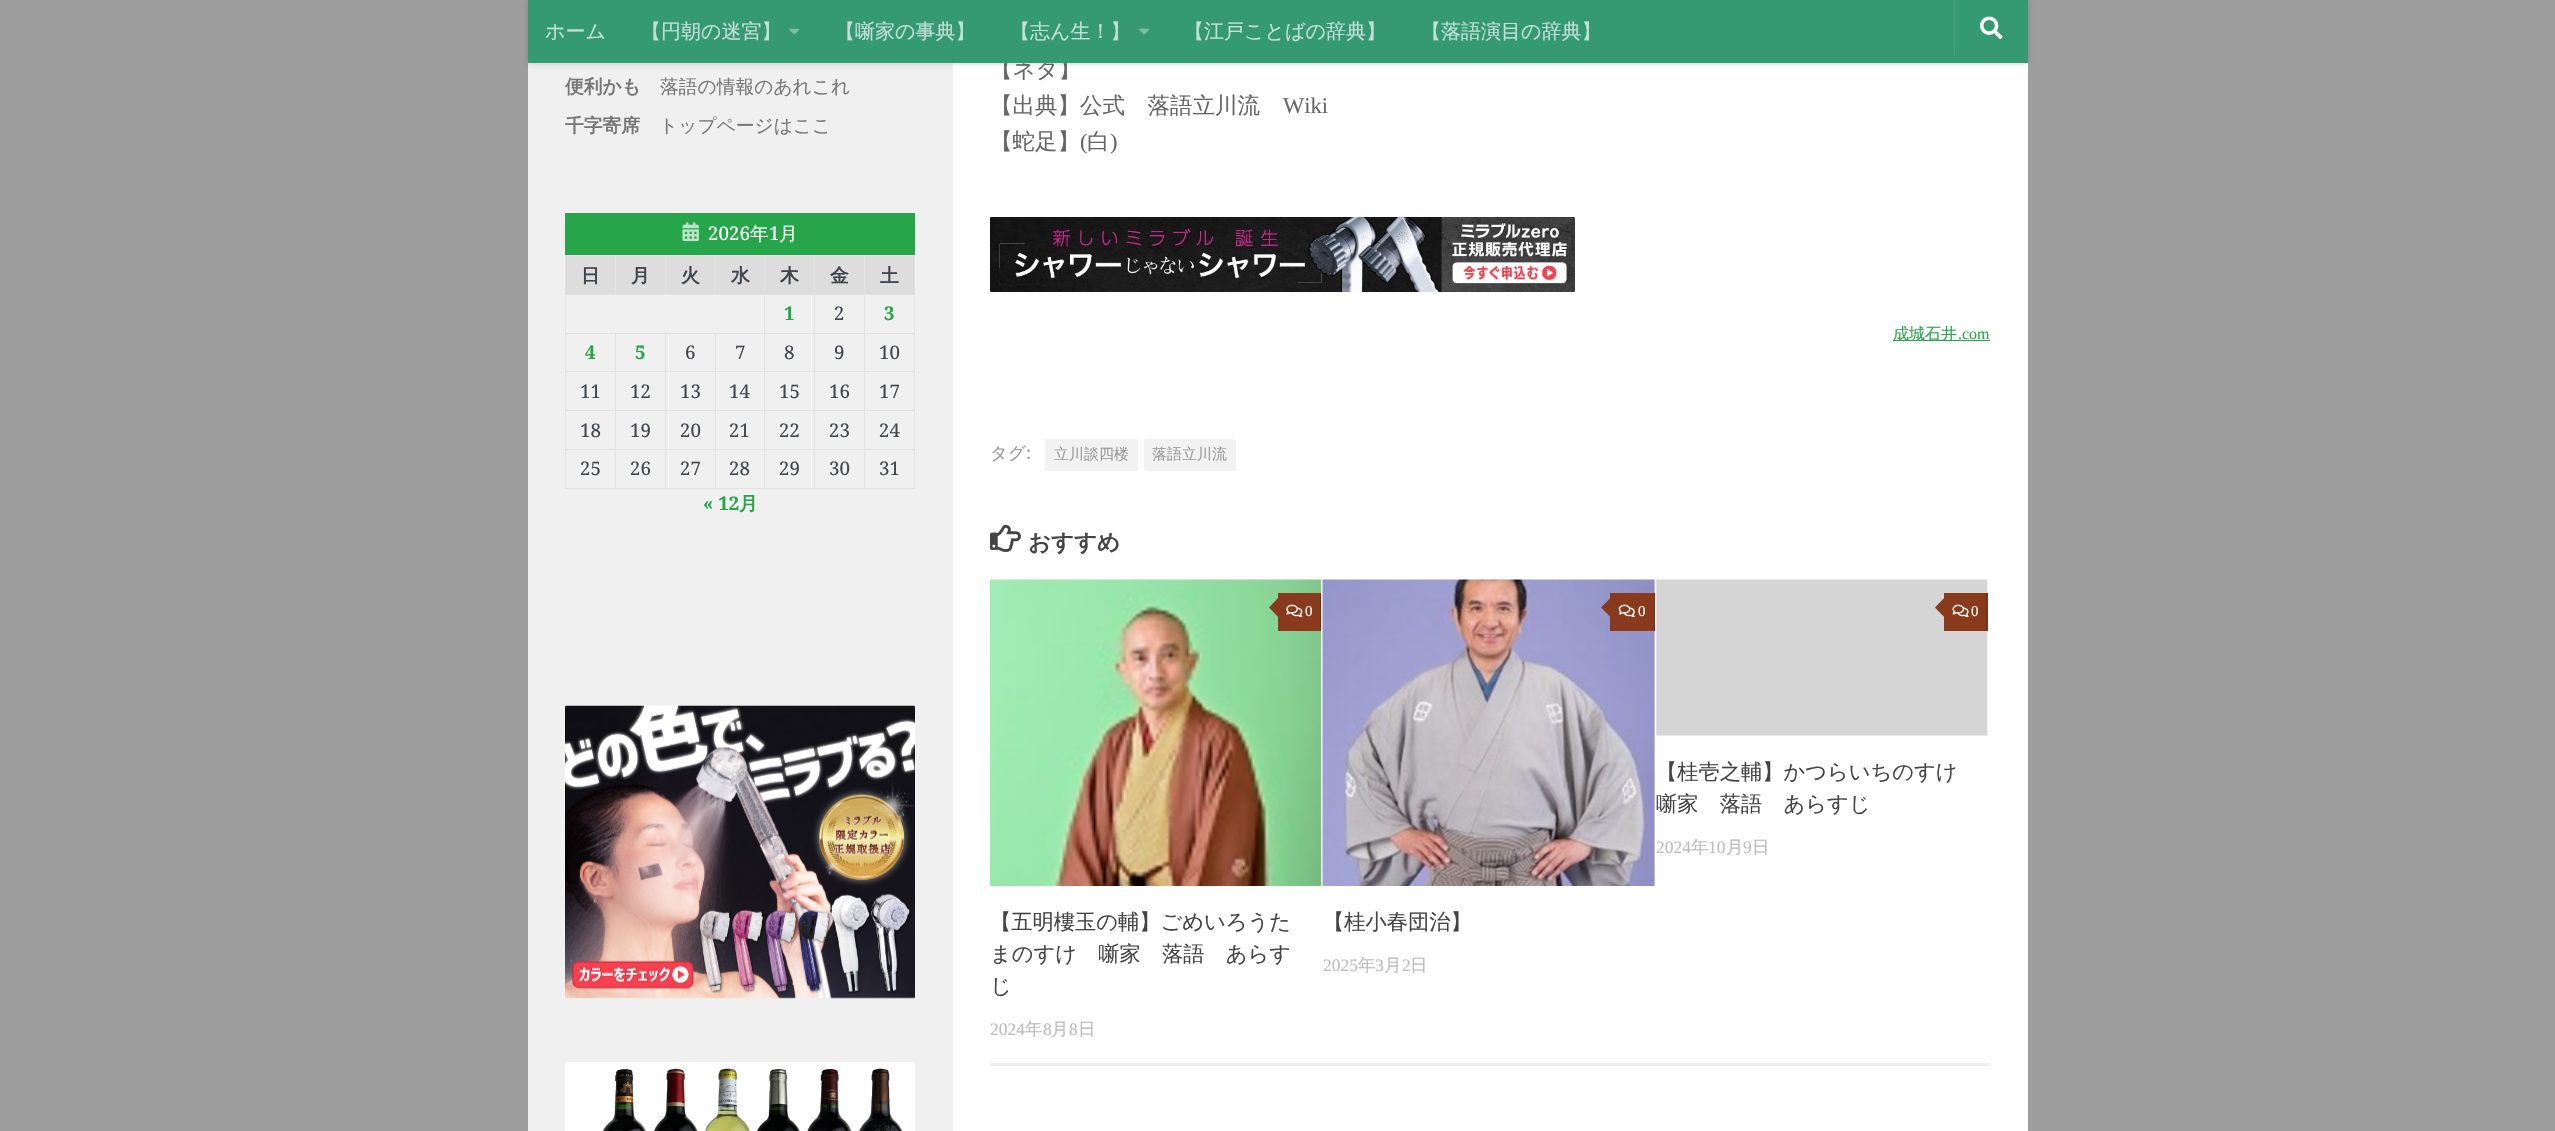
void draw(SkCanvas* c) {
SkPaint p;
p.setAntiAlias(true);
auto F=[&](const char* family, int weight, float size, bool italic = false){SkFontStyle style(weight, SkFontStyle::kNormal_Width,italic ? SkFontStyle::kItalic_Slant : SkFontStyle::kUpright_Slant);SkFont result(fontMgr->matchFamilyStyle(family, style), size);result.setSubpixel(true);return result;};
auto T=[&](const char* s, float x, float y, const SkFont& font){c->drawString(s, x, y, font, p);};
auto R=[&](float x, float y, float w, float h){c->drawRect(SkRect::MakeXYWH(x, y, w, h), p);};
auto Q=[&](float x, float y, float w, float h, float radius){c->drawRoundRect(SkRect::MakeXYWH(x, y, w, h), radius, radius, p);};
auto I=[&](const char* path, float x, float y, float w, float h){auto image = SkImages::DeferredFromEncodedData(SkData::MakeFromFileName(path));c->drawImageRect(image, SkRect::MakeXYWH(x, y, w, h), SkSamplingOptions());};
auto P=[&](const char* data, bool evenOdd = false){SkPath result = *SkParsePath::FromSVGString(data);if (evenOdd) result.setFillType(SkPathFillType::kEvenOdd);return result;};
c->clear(0xff9e9e9e);
p.setColor(0xffffffff);
R(953,63,1075,1068);
auto f1 = F("WenQuanYi Zen Hei",500,22.5);
p.setColor(0xff666666);
T("【ネタ】",990,77,f1);
p.setColor(0xfff0f0f0);
R(528,63,425,1068);
p.setColor(0x26ffffff);
c->drawPath(P("M528 62v2h1500v-63v61z"),p);
p.setColor(0x33000000);
p.setMaskFilter(SkMaskFilter::MakeBlur(kNormal_SkBlurStyle, 3));
c->drawRect(SkRect::MakeXYWH(528,0,1500,63),p);
p.setMaskFilter(nullptr);
p.setColor(0xff359972);
R(528,0,1500,63);
auto f2 = F("WenQuanYi Zen Hei",500,20);
p.setColor(0xffc2e0d5);
T("ホーム",545,38,f2);
T("【円朝の迷宮】",641,38,f2);
I("1.png",789,28,11,7);
T("【噺家の事典】",835,38,f2);
T("【志ん生！】",1010,38,f2);
I("1.png",1139,28,11,7);
T("【江戸ことばの辞典】",1184,38,f2);
T("【落語演目の辞典】",1421,38,f2);
p.setColor(0xff49a380);
R(1954,0,1,55);
I("2.png",1980,16,23,23);
auto f3 = F("WenQuanYi Zen Hei",700,18.75);
p.setColor(0xff777777);
T("便利かも",565,93,f3);
auto f4 = F("WenQuanYi Zen Hei",500,18.75);
T("落語の情報のあれこれ",660,93,f4);
T("千字寄席",565,132,f3);
T("トップページはここ",659,132,f4);
p.setColor(0xff26a54a);
R(565,213,350,42);
I("3.png",682,222,17,20);
auto f5 = F("Droid Serif",400,18.75);
p.setColor(0xffffffff);
T("2026",708,240,f5);
T("年",750,240,f4);
T("1",769,240,f5);
T("月",779,240,f4);
p.setColor(0xffdddddd);
R(566,256,49,38);
p.setColor(0xffe2e2e2);
R(864,255,51,1);
R(864,294,51,1);
R(864,333,51,1);
R(864,371,51,1);
R(864,410,51,1);
R(864,449,51,1);
R(914,449,1,40);
R(864,488,51,1);
R(864,449,1,40);
R(814,449,51,1);
R(864,410,1,40);
R(814,410,51,1);
R(864,371,1,40);
R(814,371,51,1);
R(864,333,1,40);
R(814,333,51,1);
R(864,294,1,40);
R(814,294,51,1);
R(864,255,1,40);
R(814,255,51,1);
R(814,488,51,1);
R(814,449,1,40);
R(764,449,51,1);
R(814,410,1,40);
R(764,410,51,1);
R(814,371,1,40);
R(764,371,51,1);
R(814,333,1,40);
R(764,333,51,1);
R(814,294,1,40);
R(764,294,51,1);
R(814,255,1,40);
R(764,255,51,1);
R(764,488,51,1);
R(764,449,1,40);
R(715,449,50,1);
R(764,410,1,40);
R(715,410,50,1);
R(764,371,1,40);
R(715,371,50,1);
R(764,333,1,40);
R(715,333,50,1);
R(764,294,1,40);
R(565,294,200,1);
R(764,255,1,40);
R(715,255,50,1);
R(715,255,1,40);
R(665,255,51,1);
R(665,255,1,40);
R(615,255,51,1);
R(615,255,1,40);
R(565,255,51,1);
R(715,488,50,1);
R(715,449,1,40);
R(665,449,51,1);
R(715,410,1,40);
R(665,410,51,1);
R(715,371,1,40);
R(665,371,51,1);
R(715,333,1,40);
R(665,333,51,1);
R(665,488,51,1);
R(665,449,1,40);
R(615,449,51,1);
R(665,410,1,40);
R(615,410,51,1);
R(665,371,1,40);
R(615,371,51,1);
R(665,333,1,40);
R(615,333,51,1);
R(615,488,51,1);
R(615,449,1,40);
R(565,449,51,1);
R(615,410,1,40);
R(565,410,51,1);
R(615,371,1,40);
R(565,371,51,1);
R(615,333,1,40);
R(565,333,51,1);
R(565,488,51,1);
R(565,449,1,40);
R(565,410,1,40);
R(565,371,1,40);
R(565,333,1,40);
R(565,294,1,40);
R(565,255,1,40);
p.setColor(0xff40464d);
T("日",581,282,f3);
p.setColor(0xffdddddd);
R(616,256,49,38);
p.setColor(0xff40464d);
T("月",631,282,f3);
p.setColor(0xffdddddd);
R(666,256,49,38);
p.setColor(0xff40464d);
T("火",681,282,f3);
p.setColor(0xffdddddd);
R(716,256,48,38);
p.setColor(0xff40464d);
T("水",731,282,f3);
p.setColor(0xffdddddd);
R(765,256,49,38);
p.setColor(0xff40464d);
T("木",780,282,f3);
p.setColor(0xffdddddd);
R(815,256,49,38);
p.setColor(0xff40464d);
T("金",830,282,f3);
p.setColor(0xffdddddd);
R(865,256,49,38);
p.setColor(0xffe2e2e2);
R(914,410,1,40);
R(914,371,1,40);
R(914,333,1,40);
R(914,294,1,40);
R(914,255,1,40);
p.setColor(0xff40464d);
T("土",880,282,f3);
auto f6 = F("Droid Serif",700,18.75);
p.setColor(0xff26a54a);
T("1",784,320,f6);
p.setColor(0xff40464d);
T("2",834,320,f5);
p.setColor(0xff26a54a);
T("3",884,320,f6);
T("4",585,359,f6);
T("5",635,359,f6);
p.setColor(0xff40464d);
T("6",685,359,f5);
T("7",735,359,f5);
T("8",784,359,f5);
T("9",834,359,f5);
T("10",879,359,f5);
T("11",580,398,f5);
T("12",630,398,f5);
T("13",680,398,f5);
T("14",729,398,f5);
T("15",779,398,f5);
T("16",829,398,f5);
T("17",879,398,f5);
T("18",580,437,f5);
T("19",630,437,f5);
T("20",680,437,f5);
T("21",729,437,f5);
T("22",779,437,f5);
T("23",829,437,f5);
T("24",879,437,f5);
T("25",580,475,f5);
T("26",630,475,f5);
T("27",680,475,f5);
T("28",729,475,f5);
T("29",779,475,f5);
T("30",829,475,f5);
T("31",879,475,f5);
p.setColor(0xff26a54a);
T("« 12",703,510,f6);
T("月",739,510,f3);
I("4.png",565,705,350,294);
I("5.png",565,1062,350,69);
p.setColor(0xff666666);
T("【出典】公式　落語立川流",990,113,f1);
auto f7 = F("Liberation Serif",400,22.5);
T("Wiki",1283,113,f7);
T("【蛇足】",990,149,f1);
T("(",1080,149,f7);
T("白",1087,149,f1);
T(")",1110,149,f7);
I("6.png",990,217,585,75);
p.setColor(0xff26a54a);
R(1893,340,97,1);
auto f8 = F("WenQuanYi Zen Hei",500,16);
T("成城石井",1893,339,f8);
auto f9 = F("Liberation Serif",400,16);
T(".com",1958,339,f9);
auto f10 = F("WenQuanYi Zen Hei",500,17.5);
p.setColor(0xff999999);
T("タグ",990,459,f10);
auto f11 = F("Droid Serif",400,17.5);
T(":",1026,459,f11);
p.setColor(0xfff2f2f2);
Q(1045,439,93,32,2.5);
auto f12 = F("WenQuanYi Zen Hei",500,15);
p.setColor(0xff999999);
T("立川談四楼",1054,459,f12);
p.setColor(0xfff2f2f2);
Q(1144,439,92,32,2.5);
p.setColor(0xff999999);
T("落語立川流",1152,459,f12);
I("7.png",990,524,31,28);
auto f13 = F("WenQuanYi Zen Hei",700,22.5);
p.setColor(0xff444444);
T("おすすめ",1028,550,f13);
p.setColor(0xffeeeeee);
R(990,1063,1000,3);
I("8.png",990,579,332,307);
p.setColor(0xff89391c);
R(1278,593,42,38);
p.setColor(0xff6e2e16);
R(1320,593,1,38);
p.setColor(0xff89391c);
c->drawPath(P("M1280 596v23l-11-11.5z"),p);
I("9.png",1286,604,17,14);
auto f14 = F("Liberation Serif",400,15);
p.setColor(0xffffffff);
T("0",1305,616,f14);
auto f15 = F("WenQuanYi Zen Hei",500,21.25);
p.setColor(0xff444444);
T("【五明樓玉の輔】ごめいろうた",990,929,f15);
T("まのすけ　噺家　落語　あらす",990,961,f15);
T("じ",990,993,f15);
auto f16 = F("Liberation Serif",400,17.5);
p.setColor(0xffbbbbbb);
T("2024",990,1035,f16);
T("年",1025,1035,f10);
T("8",1043,1035,f16);
T("月",1051,1035,f10);
T("8",1069,1035,f16);
T("日",1078,1035,f10);
I("10.png",1322,579,333,307);
p.setColor(0xff89391c);
R(1610,593,44,38);
p.setColor(0xff6e2e16);
R(1654,593,1,38);
p.setColor(0xff89391c);
c->drawPath(P("M1612.5 596v23l-11.5-11.5z"),p);
I("11.png",1618,604,17,14);
p.setColor(0xffffffff);
T("0",1638,616,f14);
p.setColor(0xff444444);
T("【桂小春団治】",1323,929,f15);
p.setColor(0xffbbbbbb);
T("2025",1323,971,f16);
T("年",1358,971,f10);
T("3",1375,971,f16);
T("月",1384,971,f10);
T("2",1402,971,f16);
T("日",1410,971,f10);
I("12.png",1656,579,332,157);
p.setColor(0xff89391c);
R(1944,593,44,38);
p.setColor(0xff6e2e16);
R(1986,593,1,38);
p.setColor(0xff89391c);
c->drawPath(P("M1946 596v23l-11-11.5z"),p);
I("13.png",1952,604,17,14);
p.setColor(0xffffffff);
T("0",1971,616,f14);
p.setColor(0xff444444);
T("【桂壱之輔】かつらいちのすけ",1656,779,f15);
T("噺家　落語　あらすじ",1656,811,f15);
p.setColor(0xffbbbbbb);
T("2024",1656,853,f16);
T("年",1691,853,f10);
T("10",1708,853,f16);
T("月",1726,853,f10);
T("9",1743,853,f16);
T("日",1752,853,f10);
}
